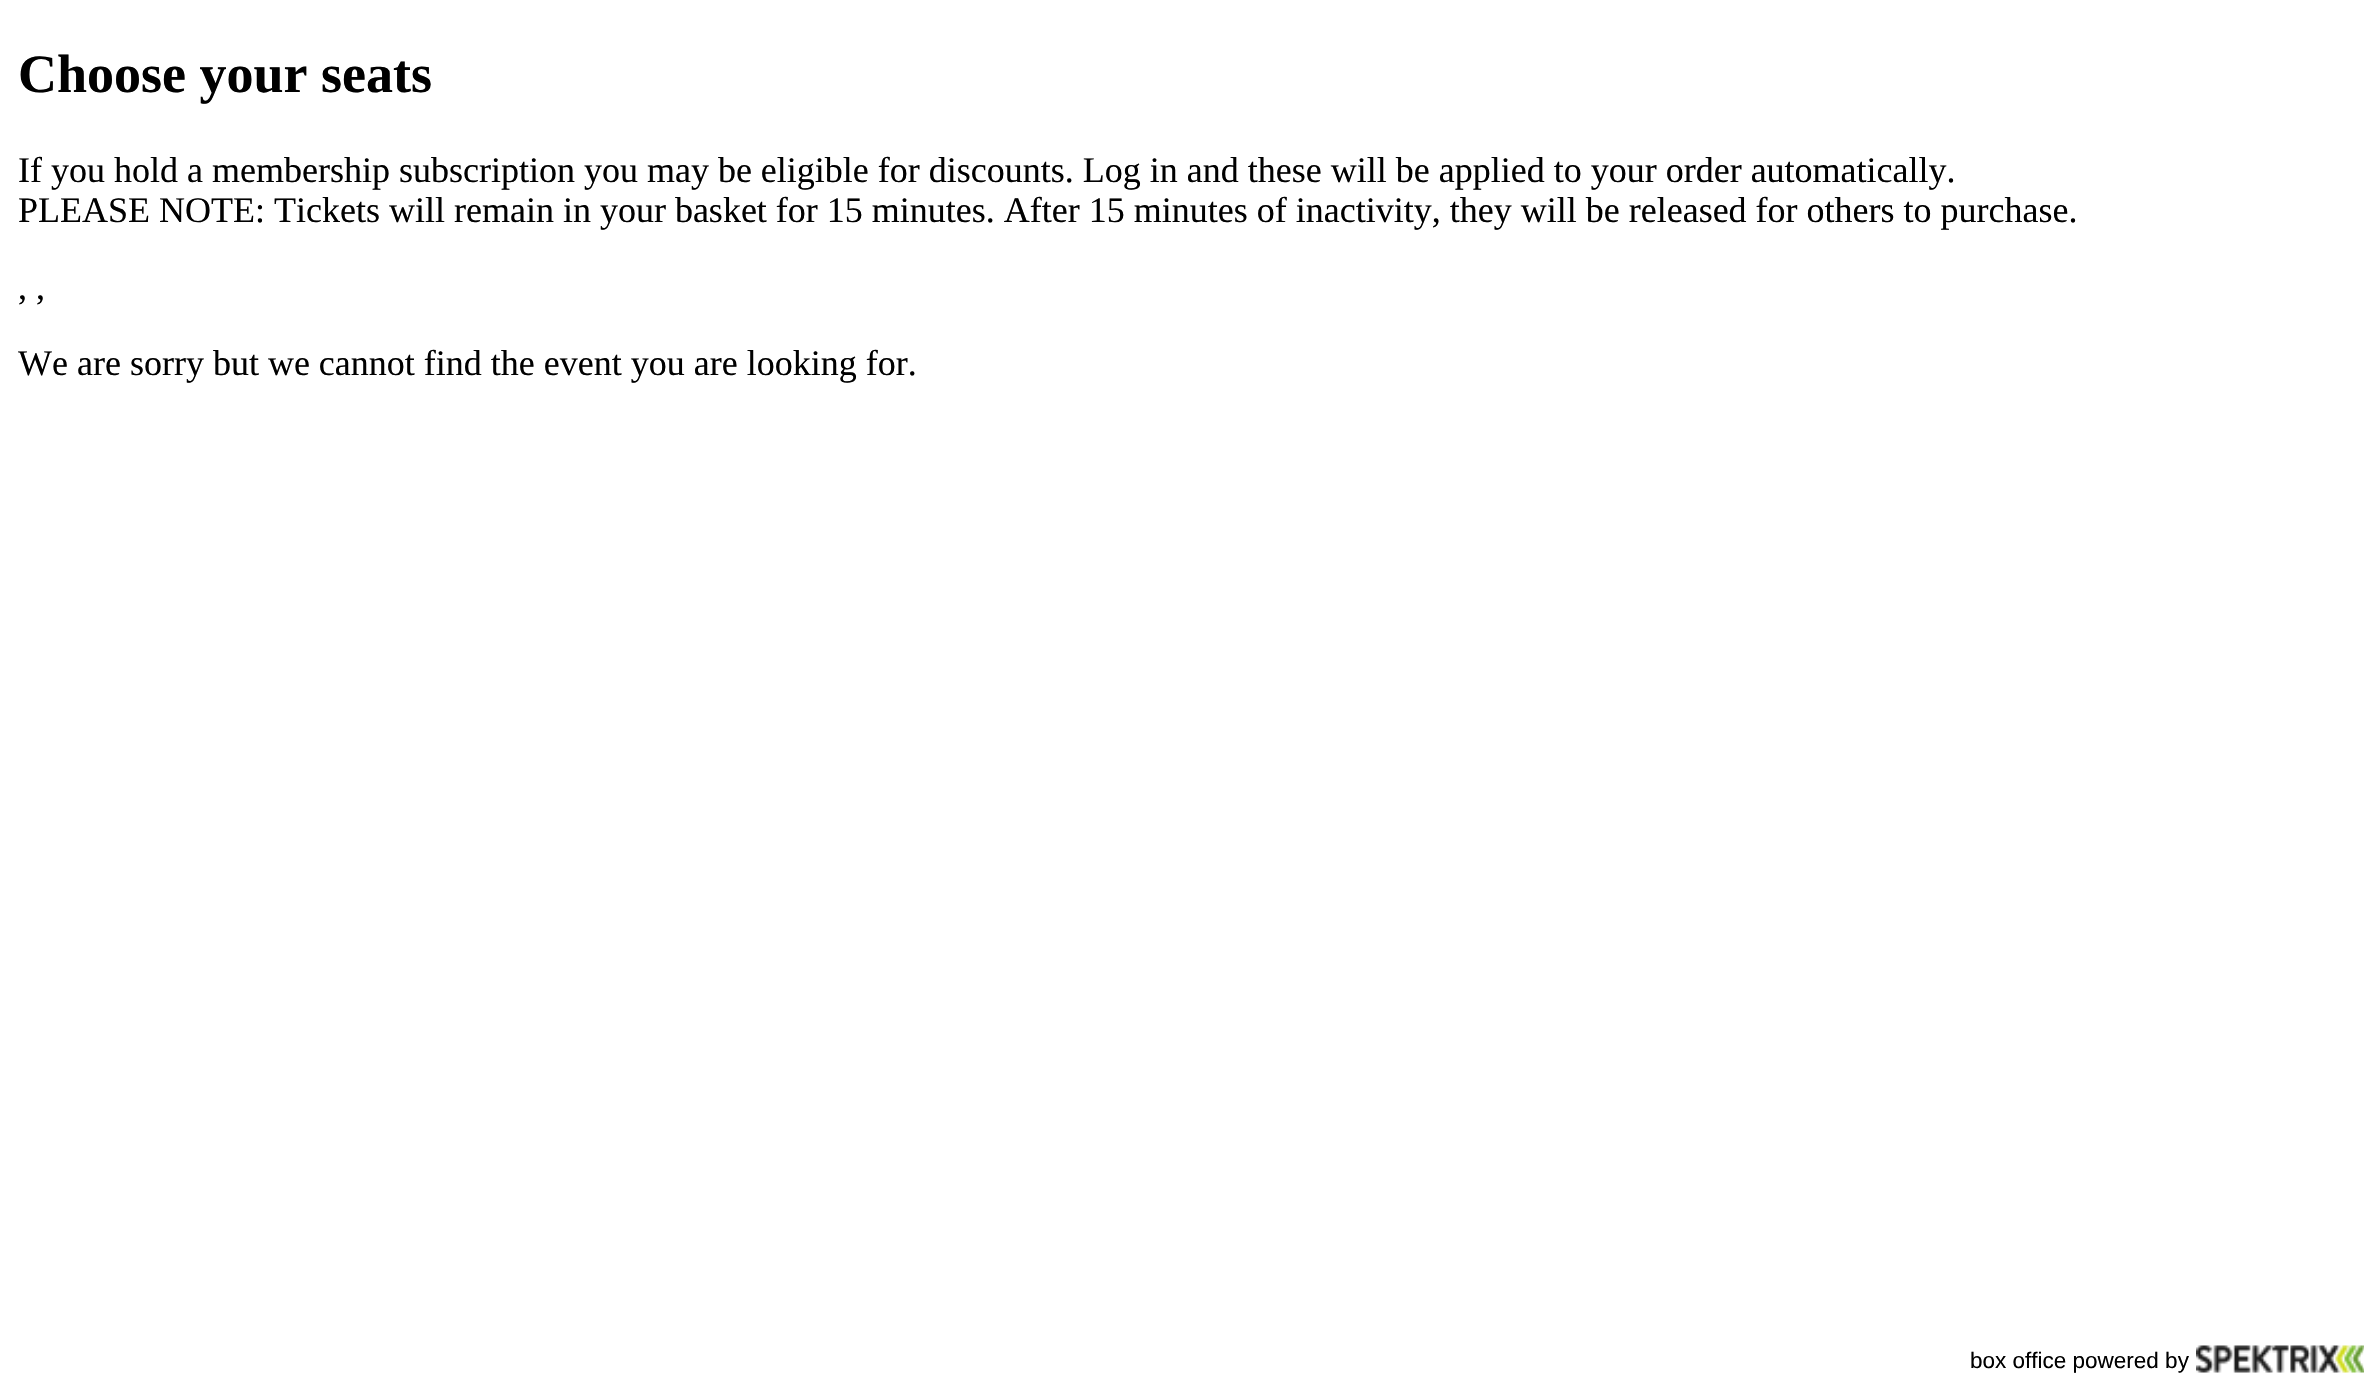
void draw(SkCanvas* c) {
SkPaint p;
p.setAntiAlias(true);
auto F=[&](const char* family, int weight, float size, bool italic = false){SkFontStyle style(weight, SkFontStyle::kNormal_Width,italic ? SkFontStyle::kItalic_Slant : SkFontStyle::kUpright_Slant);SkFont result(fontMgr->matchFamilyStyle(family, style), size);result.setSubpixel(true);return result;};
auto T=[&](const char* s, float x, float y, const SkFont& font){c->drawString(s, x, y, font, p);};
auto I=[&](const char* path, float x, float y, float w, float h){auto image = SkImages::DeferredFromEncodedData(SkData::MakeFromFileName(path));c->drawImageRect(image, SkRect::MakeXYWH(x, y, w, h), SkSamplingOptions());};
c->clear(0xffffffff);
auto f1 = F("Liberation Serif",700,54);
p.setColor(0xff000000);
T("Choose your seats",18,92,f1);
auto f2 = F("Liberation Serif",400,36);
T("If you hold a membership subscription you may be eligible for discounts. Log in and these will be applied to your order automatically.",18,182,f2);
T("PLEASE NOTE: Tickets will remain in your basket for 15 minutes. After 15 minutes of inactivity, they will be released for others to purchase.",18,222,f2);
T(", ,",18,299,f2);
T("We are sorry but we cannot find the event you are looking for.",18,375,f2);
auto f3 = F("Liberation Sans",400,22.5);
T("box office powered by",1970,1368,f3);
I("1.png",2196,1345,168,28);
}
